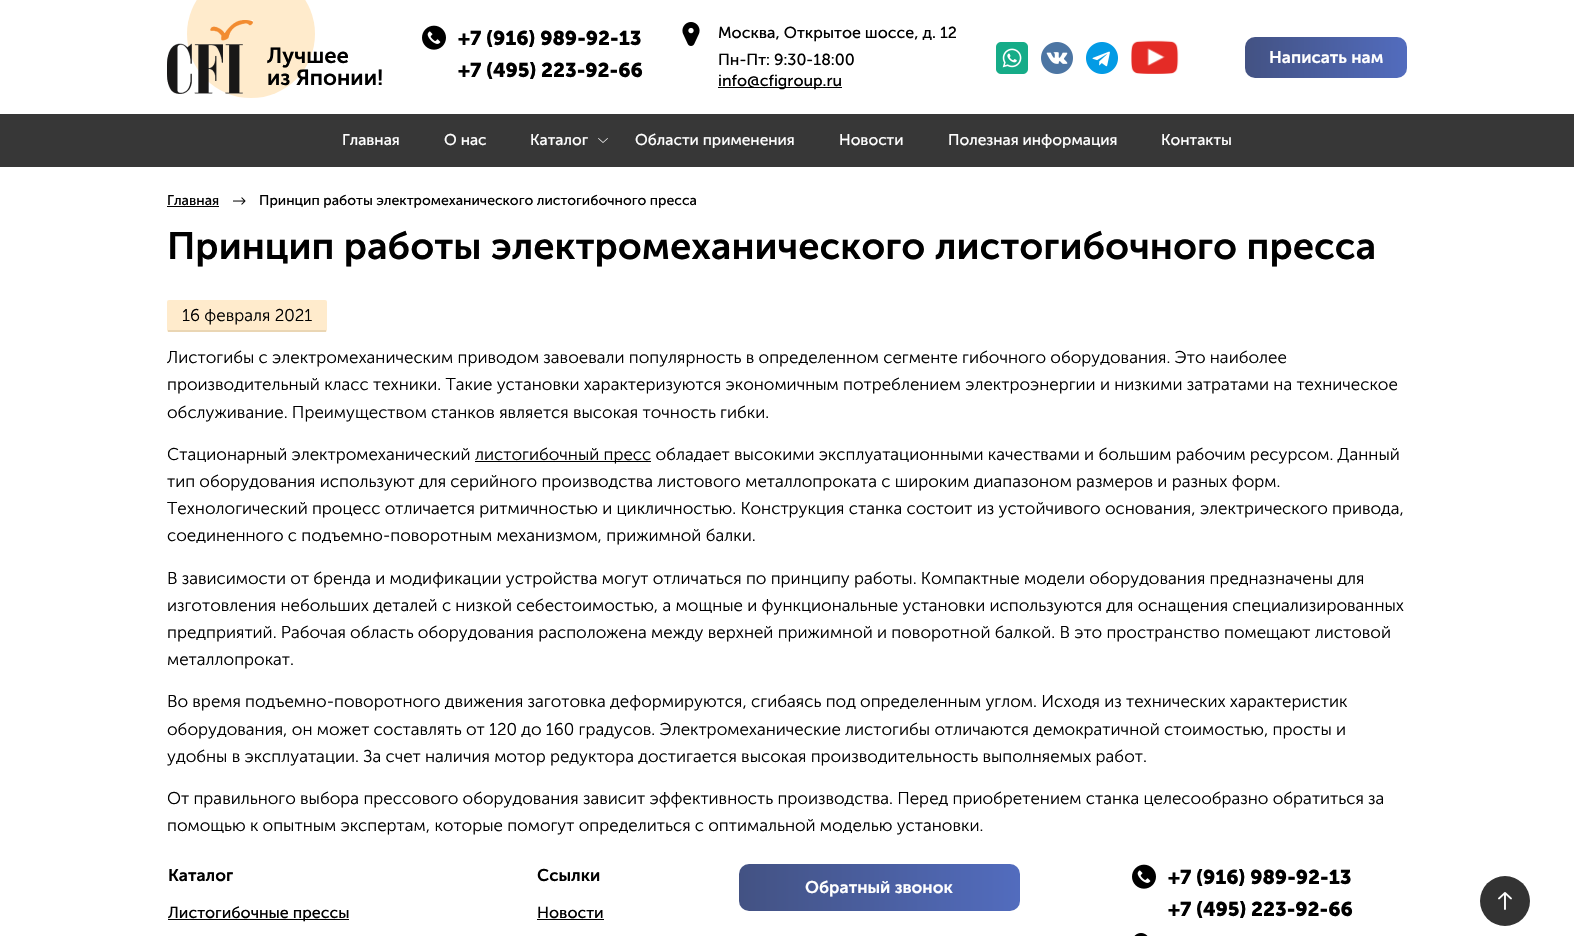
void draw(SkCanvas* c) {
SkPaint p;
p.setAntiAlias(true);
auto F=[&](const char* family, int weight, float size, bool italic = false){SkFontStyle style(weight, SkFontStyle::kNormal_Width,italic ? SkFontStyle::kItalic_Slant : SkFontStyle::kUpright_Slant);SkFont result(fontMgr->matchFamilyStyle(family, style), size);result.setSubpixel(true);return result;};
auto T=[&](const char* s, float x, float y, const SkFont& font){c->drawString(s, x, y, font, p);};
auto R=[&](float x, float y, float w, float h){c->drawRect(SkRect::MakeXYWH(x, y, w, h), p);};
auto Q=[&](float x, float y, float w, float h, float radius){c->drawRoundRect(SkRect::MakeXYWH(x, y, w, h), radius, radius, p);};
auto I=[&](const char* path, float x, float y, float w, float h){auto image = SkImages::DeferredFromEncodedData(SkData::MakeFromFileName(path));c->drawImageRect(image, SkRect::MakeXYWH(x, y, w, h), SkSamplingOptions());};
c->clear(0xffffffff);
p.setColor(0xffffebcc);
c->drawCircle(251,34,64,p);
I("1.png",167,20,86,74);
auto f1 = F("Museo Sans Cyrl",600,22);
p.setColor(0xff000000);
T("Лучшее",267,63,f1);
T("из Японии!",267,85,f1);
I("2.png",422,25,24,25);
auto f2 = F("Museo Sans Cyrl",700,20);
T("+7 (916) 989-92-13",458,45,f2);
T("+7 (495) 223-92-66",458,77,f2);
I("3.png",682,22,18,24);
auto f3 = F("Museo Sans Cyrl",400,16);
T("Москва, Открытое шоссе, д. 12",718,38,f3);
T("Пн-Пт: 9:30-18:00",718,65,f3);
R(718,87,124,1);
T("info@cfigroup.ru",718,86,f3);
I("4.png",996,42,32,32);
I("5.png",1041,42,32,32);
I("6.png",1086,42,32,32);
I("7.png",1131,40,48,34);
{
const SkColor colors[] = {0xff435283,0xff526cbe};
const float stops[] = {0,1};
const SkPoint ends[] = {{1245,58}, {1407,57}};
p.setShader(SkGradientShader::MakeLinear(ends, colors, stops, 2, SkTileMode::kClamp));
p.setAlpha(255);
}
Q(1245,37,162,41,10);
auto f4 = F("Museo Sans Cyrl",600,17);
p.setShader(nullptr);
p.setColor(0xffffffff);
T("Написать нам",1269,63,f4);
p.setColor(0xff373737);
R(0,114,1574,53);
auto f5 = F("Museo Sans Cyrl",400,15.5);
p.setColor(0xffffffff);
T("Главная",342,145,f5);
T("О нас",444,145,f5);
I("8.png",598,138,10,5);
T("Каталог",530,145,f5);
T("Области применения",635,145,f5);
T("Новости",839,145,f5);
T("Полезная информация",948,145,f5);
T("Контакты",1161,145,f5);
auto f6 = F("Museo Sans Cyrl",400,14);
p.setColor(0xff000000);
T("Главная",167,205,f6);
R(167,206,52,1);
I("9.png",233,197,13,8);
T("Принцип работы электромеханического листогибочного пресса",259,205,f6);
auto f7 = F("Museo Sans Cyrl",600,38);
T("Принцип работы электромеханического листогибочного пресса",167,259,f7);
p.setColor(0xffffebcc);
Q(167,300,160,32,2);
auto f8 = F("Museo Sans Cyrl",300,17);
p.setColor(0xff000000);
T("16 февраля 2021",182,321,f8);
p.setColor(0xffead6b4);
R(168,330,158,2);
p.setColor(0xff000000);
T("Листогибы с электромеханическим приводом завоевали популярность в определенном сегменте гибочного оборудования. Это наиболее",167,363,f8);
T("производительный класс техники. Такие установки характеризуются экономичным потреблением электроэнергии и низкими затратами на техническое",167,390,f8);
T("обслуживание. Преимуществом станков является высокая точность гибки.",167,418,f8);
T("Стационарный электромеханический",167,460,f8);
R(475,461,176,1);
T("листогибочный пресс обладает высокими эксплуатационными качествами и большим рабочим ресурсом. Данный",475,460,f8);
T("тип оборудования используют для серийного производства листового металлопроката с широким диапазоном размеров и разных форм.",167,487,f8);
T("Технологический процесс отличается ритмичностью и цикличностью. Конструкция станка состоит из устойчивого основания, электрического привода,",167,514,f8);
T("соединенного с подъемно-поворотным механизмом, прижимной балки.",167,541,f8);
T("В зависимости от бренда и модификации устройства могут отличаться по принципу работы. Компактные модели оборудования предназначены для",167,584,f8);
T("изготовления небольших деталей с низкой себестоимостью, а мощные и функциональные установки используются для оснащения специализированных",167,611,f8);
T("предприятий. Рабочая область оборудования расположена между верхней прижимной и поворотной балкой. В это пространство помещают листовой",167,638,f8);
T("металлопрокат.",167,665,f8);
T("Во время подъемно-поворотного движения заготовка деформируются, сгибаясь под определенным углом. Исходя из технических характеристик",167,707,f8);
T("оборудования, он может составлять от 120 до 160 градусов. Электромеханические листогибы отличаются демократичной стоимостью, просты и",167,735,f8);
T("удобны в эксплуатации. За счет наличия мотор редуктора достигается высокая производительность выполняемых работ.",167,762,f8);
T("От правильного выбора прессового оборудования зависит эффективность производства. Перед приобретением станка целесообразно обратиться за",167,804,f8);
T("помощью к опытным экспертам, которые помогут определиться с оптимальной моделью установки.",167,831,f8);
T("Каталог",168,881,f4);
R(168,919,181,1);
T("Листогибочные прессы",168,918,f3);
T("Ссылки",537,881,f4);
T("Новости",537,918,f3);
R(537,919,67,1);
{
const SkColor colors[] = {0xff435283,0xff526cbe};
const float stops[] = {0,1};
const SkPoint ends[] = {{739,888}, {1020,888}};
p.setShader(SkGradientShader::MakeLinear(ends, colors, stops, 2, SkTileMode::kClamp));
p.setAlpha(255);
}
Q(739,864,281,47,10);
p.setShader(nullptr);
p.setColor(0xffffffff);
T("Обратный звонок",805,893,f4);
I("2.png",1132,864,24,25);
p.setColor(0xff000000);
T("+7 (916) 989-92-13",1168,884,f2);
T("+7 (495) 223-92-66",1168,916,f2);
I("10.png",1134,933,14,3);
p.setColor(0xff333333);
c->drawCircle(1505,901,25,p);
I("11.png",1498,892,14,18);
}
